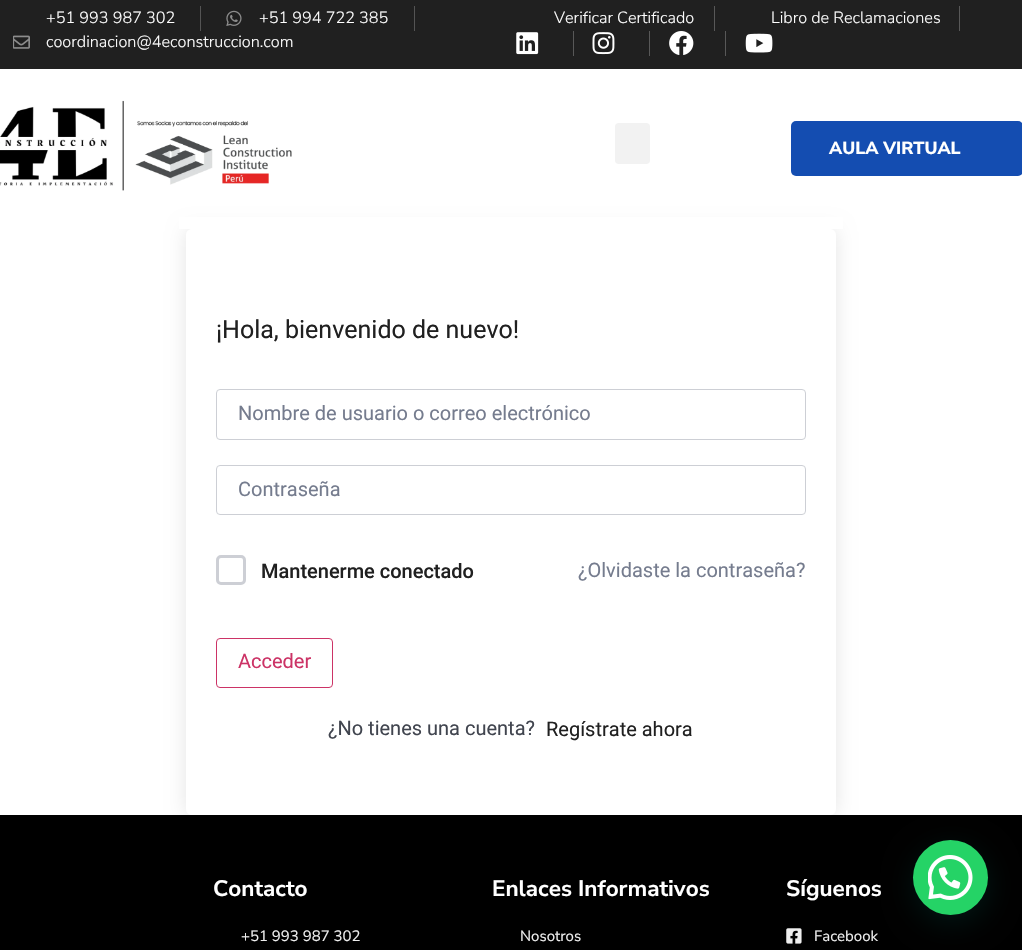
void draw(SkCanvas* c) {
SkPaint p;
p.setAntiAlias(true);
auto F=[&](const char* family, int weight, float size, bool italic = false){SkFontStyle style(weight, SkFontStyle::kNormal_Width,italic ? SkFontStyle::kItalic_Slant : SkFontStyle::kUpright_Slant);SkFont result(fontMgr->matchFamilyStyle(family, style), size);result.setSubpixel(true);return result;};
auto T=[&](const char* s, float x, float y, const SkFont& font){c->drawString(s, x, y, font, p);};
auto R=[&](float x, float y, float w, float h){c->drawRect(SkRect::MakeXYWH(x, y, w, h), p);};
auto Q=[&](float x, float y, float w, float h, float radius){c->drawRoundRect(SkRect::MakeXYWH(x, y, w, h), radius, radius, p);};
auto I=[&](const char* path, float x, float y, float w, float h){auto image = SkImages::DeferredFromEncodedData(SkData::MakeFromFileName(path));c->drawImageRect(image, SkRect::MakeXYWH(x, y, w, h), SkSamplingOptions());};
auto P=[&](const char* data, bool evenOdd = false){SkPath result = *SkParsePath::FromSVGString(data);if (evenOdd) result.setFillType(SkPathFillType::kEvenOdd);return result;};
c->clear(0xffffffff);
p.setColor(0xff202020);
R(0,0,1022,69);
auto f1 = F("Nunito Sans",300,16.25);
p.setColor(0xffffffff);
T("+51 993 987 302",46,23,f1);
p.setColor(0xff545454);
R(200,6,1,25);
I("1.png",226,10,16,16);
p.setColor(0xffffffff);
T("+51 994 722 385",259,23,f1);
p.setColor(0xff545454);
R(414,6,1,25);
I("2.png",13,35,17,14);
p.setColor(0xffffffff);
T("coordinacion@4econstruccion.com",46,47,f1);
T("Verificar Certificado",554,23,f1);
p.setColor(0xff585858);
R(714,6,1,25);
p.setColor(0xffffffff);
T("Libro de Reclamaciones",771,23,f1);
p.setColor(0xff585858);
R(959,6,1,25);
I("3.png",516,32,23,23);
R(573,31,1,25);
I("4.png",592,32,23,23);
R(649,31,1,25);
I("5.png",669,31,25,24);
R(725,31,1,25);
I("6.png",745,33,28,20);
c->save();
c->clipPath(P("M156 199h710v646h-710zm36 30h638c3.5 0 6 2.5 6 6v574c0 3.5-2.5 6-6 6h-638c-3.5 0-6-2.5-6-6v-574c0-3.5 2.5-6 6-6z",true),true);
p.setColor(0x1a000000);
p.setMaskFilter(SkMaskFilter::MakeBlur(kNormal_SkBlurStyle, 9.5));
c->drawRoundRect(SkRect::MakeXYWH(186,229,650,586),6,6,p);
p.setMaskFilter(nullptr);
c->restore();
p.setColor(0xffffffff);
R(179,217,664,12);
I("7.png",0,100,292,91);
p.setColor(0xfff2f2f2);
Q(615,123,35,41,4);
p.setColor(0xff144db1);
Q(791,121,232,55,5);
auto f2 = F("Nunito Sans",800,17.5);
p.setColor(0xffffffff);
T("AULA VIRTUAL",829,154,f2);
auto f3 = F("Roboto",400,25);
p.setColor(0xff202020);
T("¡Hola, bienvenido de nuevo!",216,338,f3);
p.setStroke(true);
p.setStrokeWidth(1);
p.setColor(0xffcdcfd5);
c->drawRoundRect(SkRect::MakeXYWH(216.5,389.5,589,50),3.5,3.5,p);
auto f4 = F("Roboto",400,20);
p.setStroke(false);
p.setColor(0xff757c8e);
T("Nombre de usuario o correo electrónico",238,420,f4);
p.setStroke(true);
p.setColor(0xffcdcfd5);
c->drawRoundRect(SkRect::MakeXYWH(216.5,465.5,589,49),3.5,3.5,p);
p.setStroke(false);
p.setColor(0xff757c8e);
T("Contraseña",238,496,f4);
p.setStroke(true);
p.setStrokeWidth(3);
p.setColor(0xffcdcfd5);
c->drawRoundRect(SkRect::MakeXYWH(217.5,556.5,27,27),3.5,3.5,p);
auto f5 = F("Roboto",500,20);
p.setStroke(false);
p.setColor(0xff202020);
T("Mantenerme conectado",261,578,f5);
p.setColor(0xff757c8e);
T("¿Olvidaste la contraseña?",578,577,f4);
p.setStroke(true);
p.setStrokeWidth(1);
p.setColor(0xffcc3366);
c->drawRoundRect(SkRect::MakeXYWH(216.5,638.5,116,49),3.5,3.5,p);
p.setStroke(false);
T("Acceder",238,668,f4);
p.setColor(0xff41454f);
T("¿No tienes una cuenta?",328,735,f4);
p.setColor(0xff202020);
T("Regístrate ahora",546,736,f4);
p.setColor(0xff000000);
R(0,815,1022,135);
auto f6 = F("Nunito Sans",700,22.5);
p.setColor(0xffffffff);
T("Contacto",213,896,f6);
auto f7 = F("Nunito Sans",400,15);
p.setColor(0xffeeeeee);
T("+51 993 987 302",241,941,f7);
p.setColor(0xffffffff);
T("Enlaces Informativos",492,896,f6);
p.setColor(0xffeeeeee);
T("Nosotros",520,941,f7);
p.setColor(0xffffffff);
T("Síguenos",786,896,f6);
I("8.png",786,928,16,16);
p.setColor(0xffeeeeee);
T("Facebook",814,941,f7);
p.setColor(0x3d075e54);
p.setMaskFilter(SkMaskFilter::MakeBlur(kNormal_SkBlurStyle, 15));
c->drawRoundRect(SkRect::MakeXYWH(914,848,75,75),37.5,37.5,p);
p.setMaskFilter(nullptr);
p.setColor(0xff25d366);
c->drawCircle(950.5,877.5,37.5,p);
I("9.png",928,855,45,45);
}
